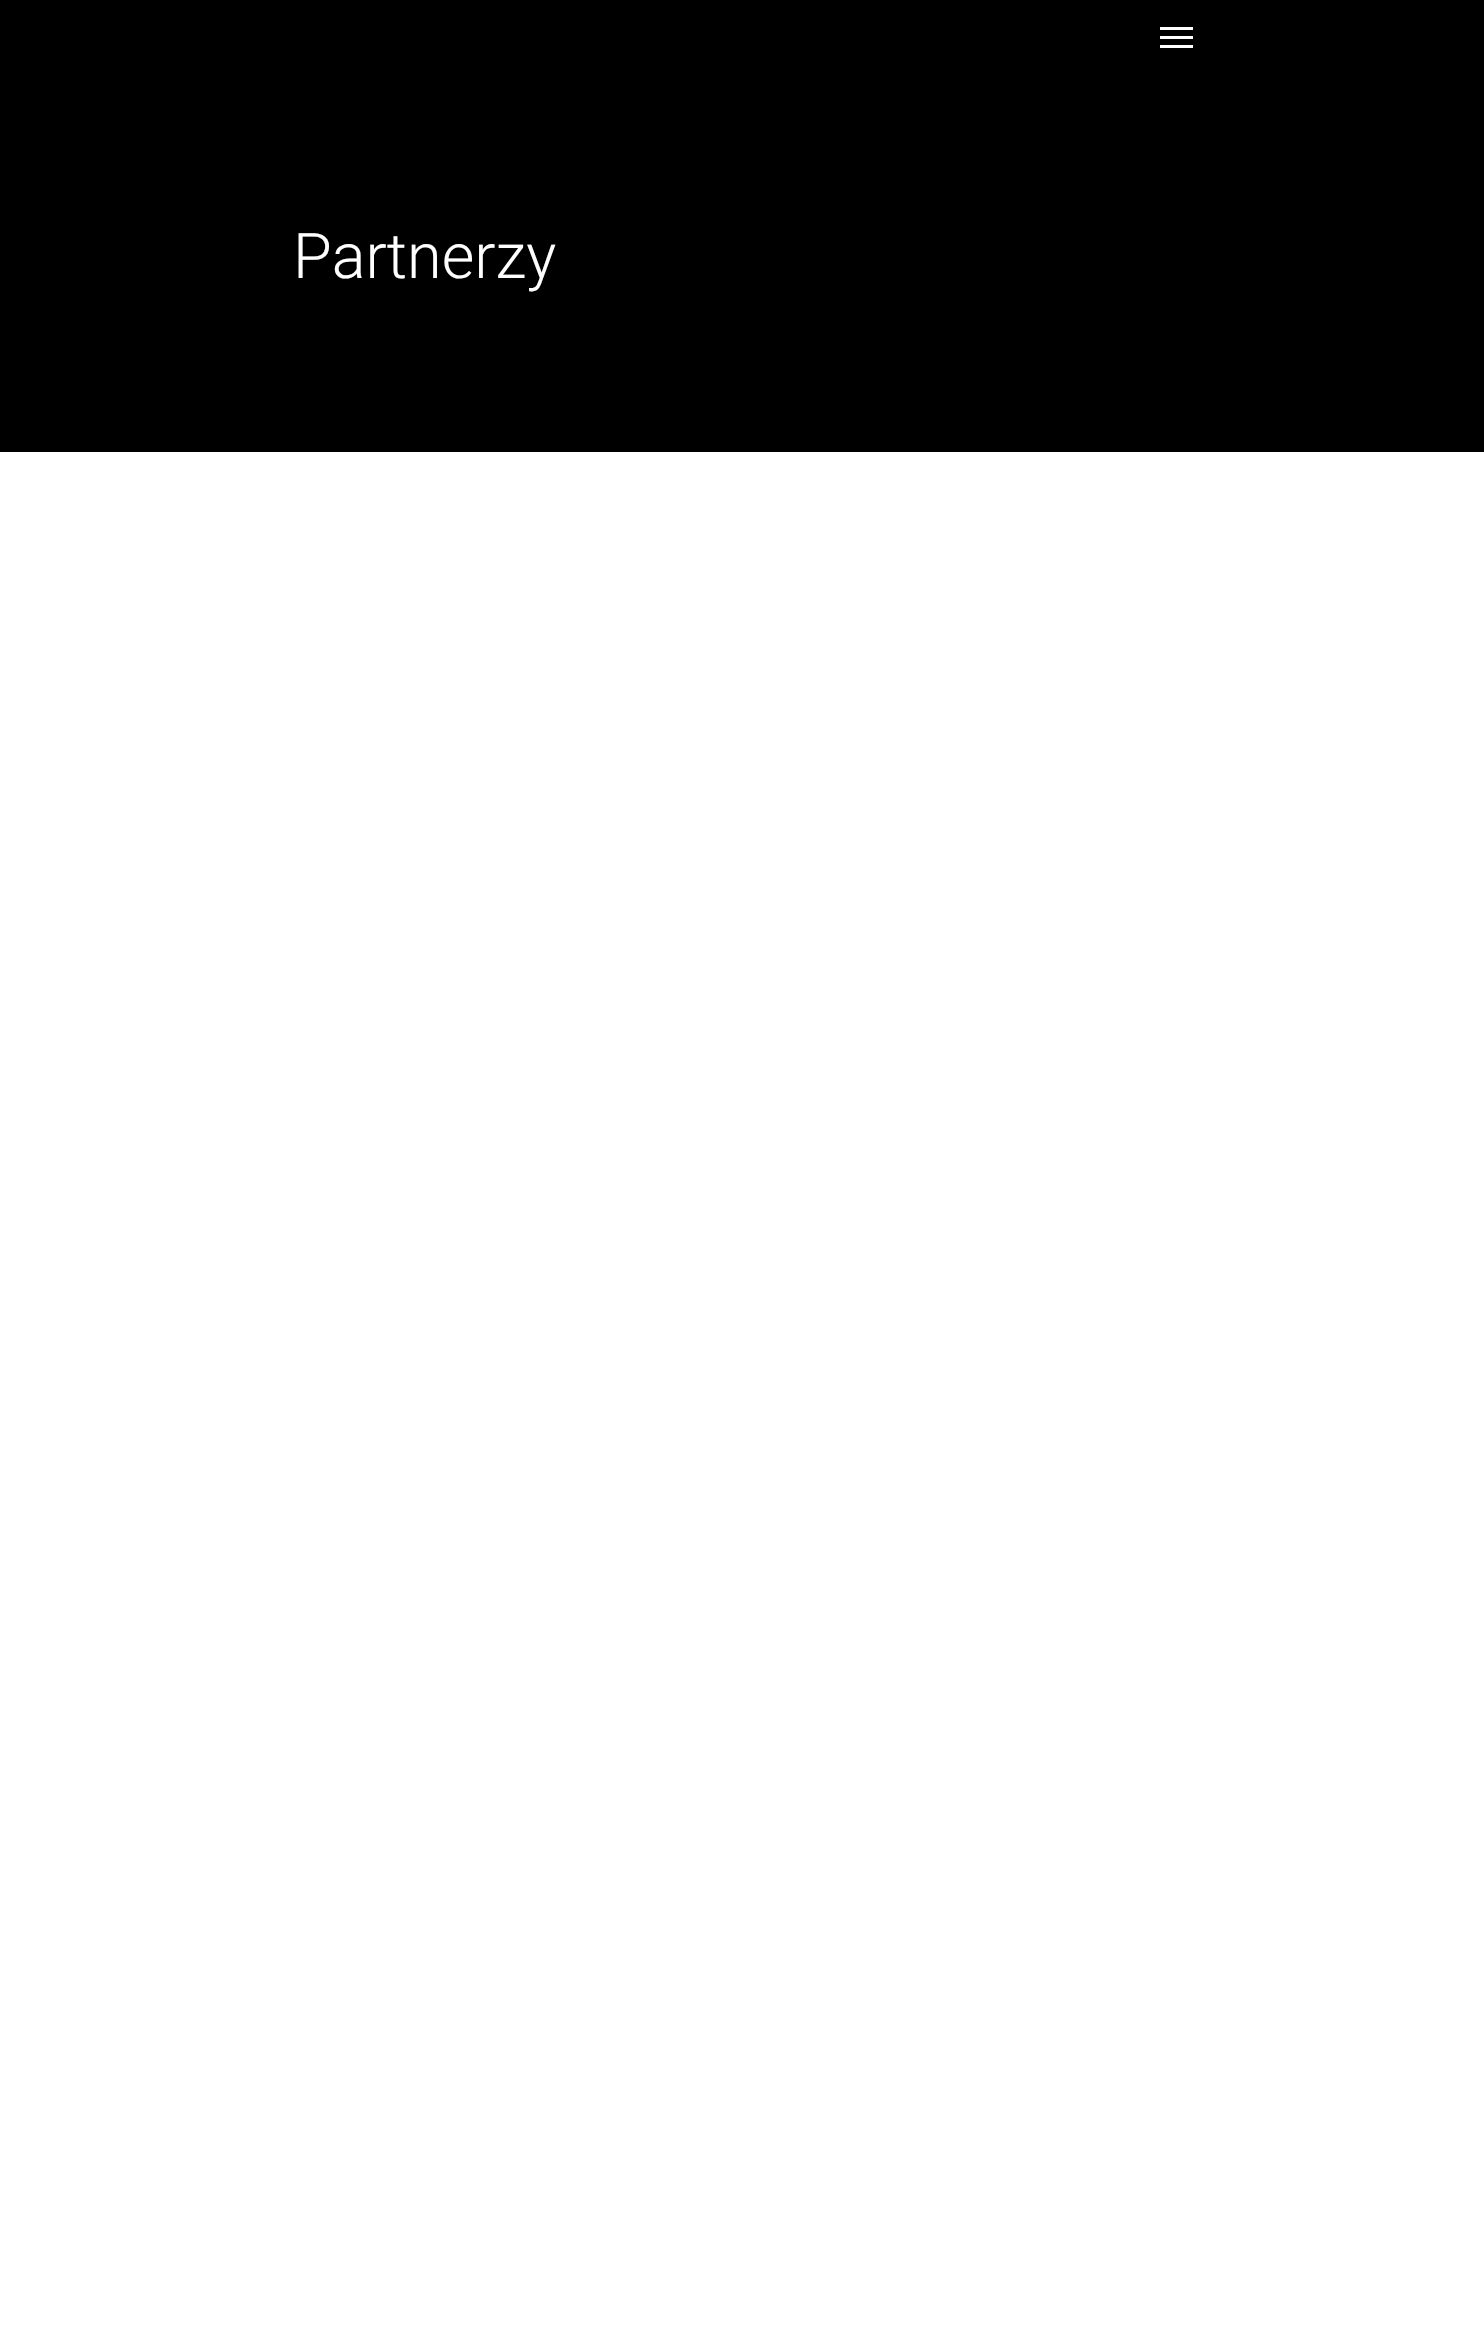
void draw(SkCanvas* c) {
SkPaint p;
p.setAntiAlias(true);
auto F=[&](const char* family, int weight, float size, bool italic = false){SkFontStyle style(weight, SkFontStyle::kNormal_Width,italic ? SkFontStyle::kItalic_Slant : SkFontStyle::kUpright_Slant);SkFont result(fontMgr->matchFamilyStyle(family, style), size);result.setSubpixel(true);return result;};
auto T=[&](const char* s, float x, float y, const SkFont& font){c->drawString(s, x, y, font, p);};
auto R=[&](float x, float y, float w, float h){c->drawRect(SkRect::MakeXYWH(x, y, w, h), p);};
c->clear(0xffffffff);
p.setColor(0xff000000);
R(0,0,1484,452);
p.setColor(0xffffffff);
R(1160,27,33,3);
R(1160,45,33,3);
R(1160,36,33,3);
auto f1 = F("Roboto",300,63);
T("Partnerzy",293,278,f1);
}
